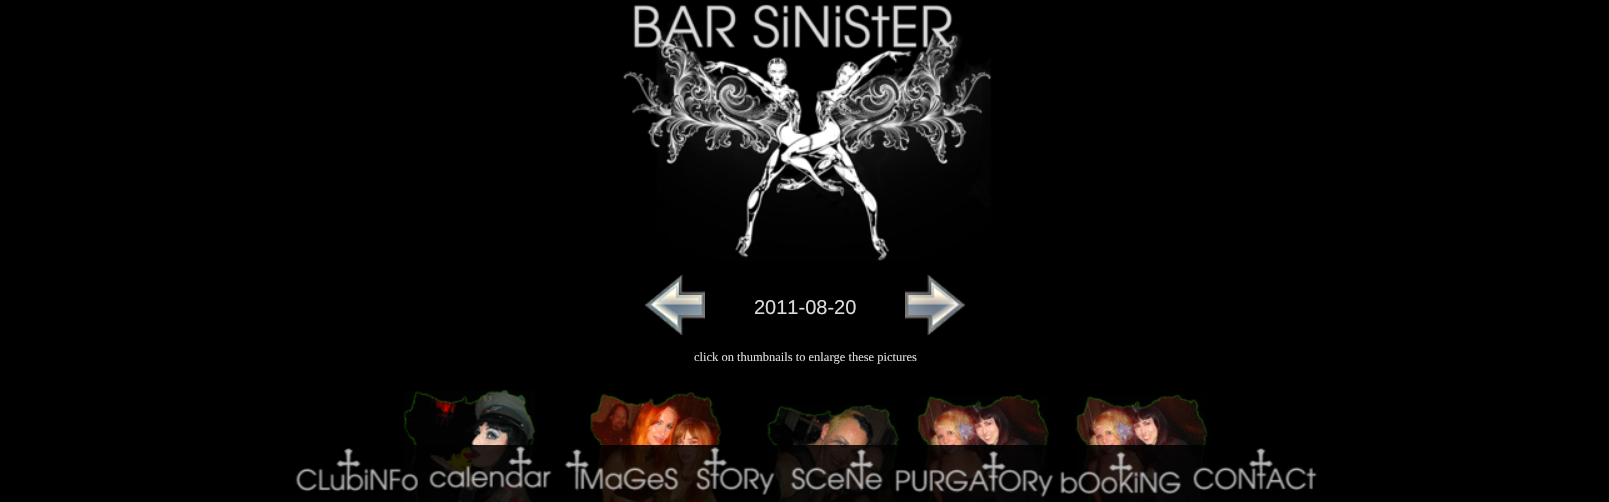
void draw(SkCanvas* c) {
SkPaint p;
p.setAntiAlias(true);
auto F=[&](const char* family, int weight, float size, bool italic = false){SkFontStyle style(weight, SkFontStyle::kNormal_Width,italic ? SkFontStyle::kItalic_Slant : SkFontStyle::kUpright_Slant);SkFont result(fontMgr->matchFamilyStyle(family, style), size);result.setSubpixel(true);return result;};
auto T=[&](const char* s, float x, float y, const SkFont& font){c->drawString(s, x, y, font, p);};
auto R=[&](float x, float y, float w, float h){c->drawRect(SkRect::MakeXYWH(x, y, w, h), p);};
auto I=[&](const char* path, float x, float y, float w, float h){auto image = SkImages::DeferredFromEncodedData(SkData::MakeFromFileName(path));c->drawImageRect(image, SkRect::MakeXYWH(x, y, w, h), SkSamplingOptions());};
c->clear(0xff000000);
I("1.png",623,4,369,257);
I("2.png",645,275,60,60);
auto f1 = F("Liberation Sans",400,20);
p.setColor(0xffdddddd);
T("2011-08-20",754,314,f1);
I("3.png",905,275,60,60);
auto f2 = F("Liberation Serif",400,12.5);
T("click on thumbnails to enlarge these pictures",694,361,f2);
I("4.png",403,390,132,112);
I("5.png",590,392,132,110);
I("6.png",767,405,132,97);
I("7.png",917,395,132,107);
I("8.png",1076,395,132,107);
p.setColor(0xd9000000);
R(410,445,796,57);
I("9.png",295,447,123,45);
I("10.png",429,446,123,43);
I("11.png",564,448,115,43);
I("12.png",695,447,80,49);
I("13.png",790,448,93,43);
I("14.png",895,451,159,47);
I("15.png",1060,451,122,43);
I("16.png",1193,447,124,44);
}
